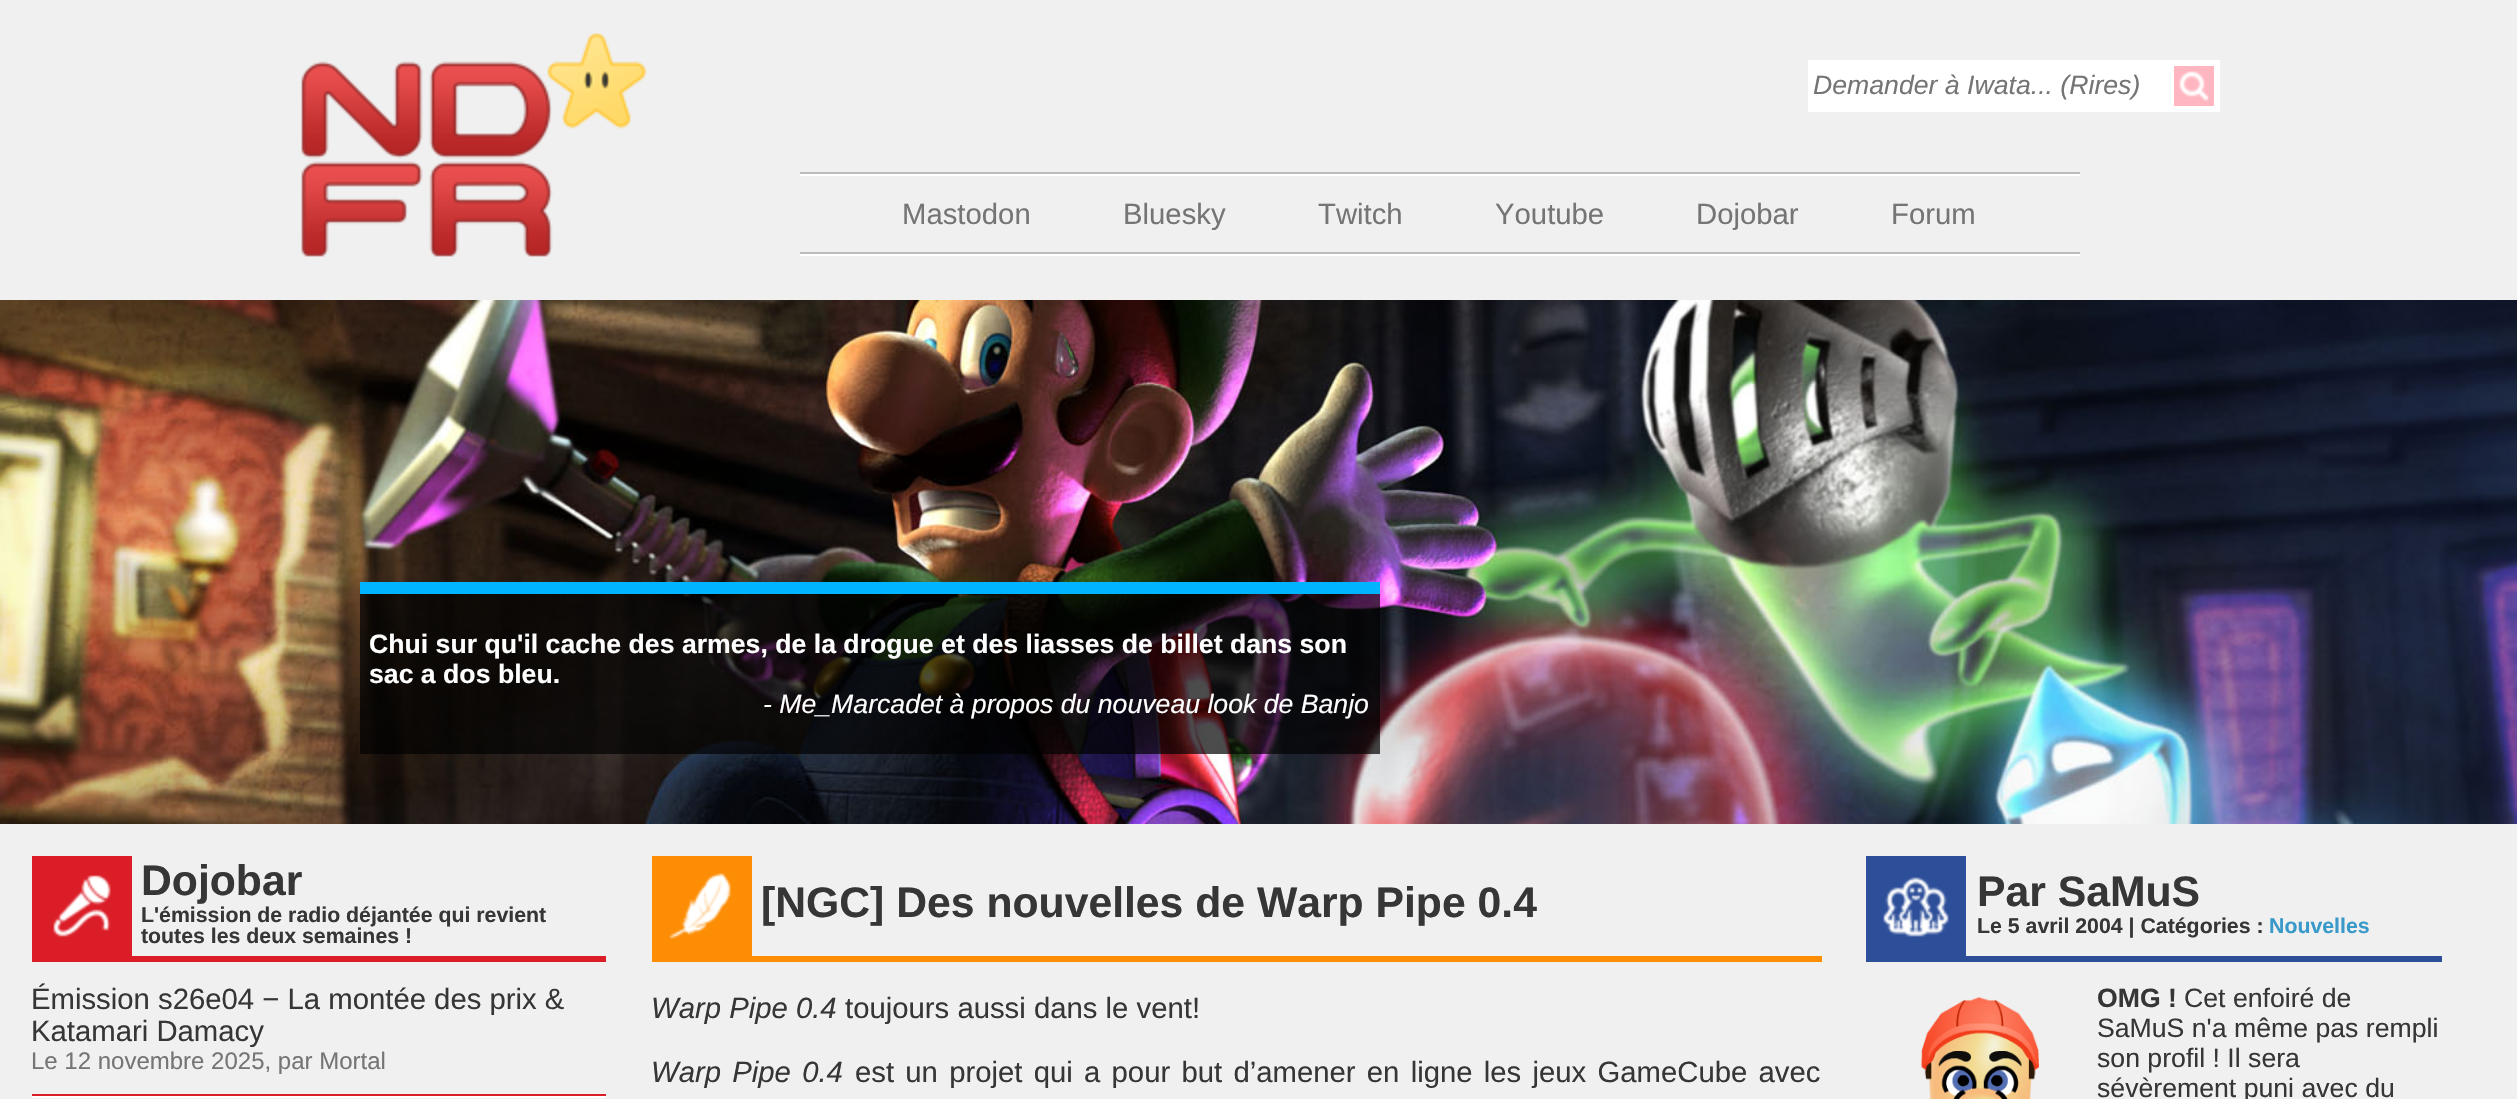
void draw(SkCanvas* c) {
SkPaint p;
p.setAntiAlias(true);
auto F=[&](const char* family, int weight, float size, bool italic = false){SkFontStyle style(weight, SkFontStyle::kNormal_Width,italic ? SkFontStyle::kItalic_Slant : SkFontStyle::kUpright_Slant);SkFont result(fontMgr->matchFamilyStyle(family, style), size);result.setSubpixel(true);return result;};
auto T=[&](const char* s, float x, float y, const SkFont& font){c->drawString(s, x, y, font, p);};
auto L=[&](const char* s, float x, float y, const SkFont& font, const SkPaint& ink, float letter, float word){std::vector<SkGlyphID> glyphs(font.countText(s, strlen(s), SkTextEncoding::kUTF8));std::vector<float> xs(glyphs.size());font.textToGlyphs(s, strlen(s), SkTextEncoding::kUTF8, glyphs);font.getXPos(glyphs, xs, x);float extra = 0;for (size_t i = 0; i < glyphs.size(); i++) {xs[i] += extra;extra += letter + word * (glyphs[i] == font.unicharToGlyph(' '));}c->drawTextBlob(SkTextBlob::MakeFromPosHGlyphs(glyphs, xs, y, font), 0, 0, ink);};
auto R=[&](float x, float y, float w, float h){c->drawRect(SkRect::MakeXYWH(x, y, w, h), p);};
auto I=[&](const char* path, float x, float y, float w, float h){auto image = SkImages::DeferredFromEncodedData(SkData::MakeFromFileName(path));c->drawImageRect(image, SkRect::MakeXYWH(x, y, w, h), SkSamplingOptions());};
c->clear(0xfff0f0f0);
I("1.png",301,33,346,224);
p.setColor(0xffffffff);
R(1808,60,412,52);
auto f1 = F("Liberation Sans",400,26.65,true);
p.setColor(0xff757575);
T("Demander à Iwata... (Rires)",1813,94,f1);
p.setColor(0xffffb6c1);
R(2174,66,40,40);
I("2.png",2179,71,30,30);
p.setColor(0xffbbbbbb);
R(800,172,1280,2);
p.setColor(0xffffffff);
R(800,174,1280,2);
auto f2 = F("Liberation Sans",400,29.3);
p.setColor(0xff757575);
T("Mastodon",902,224,f2);
T("Bluesky",1123,224,f2);
T("Twitch",1318,224,f2);
T("Youtube",1495,224,f2);
T("Dojobar",1696,224,f2);
T("Forum",1891,224,f2);
p.setColor(0xffbbbbbb);
R(800,252,1280,2);
p.setColor(0xffffffff);
R(800,254,1280,2);
I("3.png",0,300,2517,524);
p.setColor(0xb3000000);
R(360,594,1020,160);
p.setColor(0xff00b4ff);
R(360,582,1020,12);
auto f3 = F("Liberation Sans",700,26.65);
p.setColor(0xffffffff);
T("Chui sur qu'il cache des armes, de la drogue et des liasses de billet dans son",369,653,f3);
T("sac a dos bleu.",369,683,f3);
T("- Me_Marcadet à propos du nouveau look de Banjo",763,713,f1);
p.setColor(0xffdb1d27);
R(32,956,574,6);
R(32,856,100,100);
I("4.png",53,875,58,62);
auto f4 = F("Liberation Sans",700,42.7);
p.setColor(0xff363636);
T("Dojobar",141,895,f4);
auto f5 = F("Liberation Sans",700,21.3);
T("L'émission de radio déjantée qui revient",141,922,f5);
T("toutes les deux semaines !",141,943,f5);
T("Émission s26e04 − La montée des prix &",31,1009,f2);
T("Katamari Damacy",31,1041,f2);
auto f6 = F("Liberation Sans",400,24);
p.setColor(0xff757575);
T("Le 12 novembre 2025, par Mortal",31,1069,f6);
p.setColor(0xffdb1d27);
R(32,1094,574,2);
p.setColor(0xffffffff);
R(32,1096,574,2);
p.setColor(0xfffd8d05);
R(652,956,1170,6);
R(652,856,100,100);
I("5.png",669,873,62,66);
p.setColor(0xff363636);
T("[NGC] Des nouvelles de Warp Pipe 0.4",761,917,f4);
auto f7 = F("Liberation Sans",400,29.3,true);
T("Warp Pipe 0.4",651,1018,f7);
T("toujours aussi dans le vent!",845,1018,f2);
L("Warp Pipe 0.4",651,1082,f7,p,0,3.1);
L("est un projet qui a pour but d’amener en ligne les jeux GameCube avec",855,1082,f2,p,0,3.1);
p.setColor(0xff2d4e99);
R(1866,956,576,6);
R(1866,856,100,100);
I("6.png",1883,877,66,60);
p.setColor(0xff363636);
T("Par SaMuS",1977,906,f4);
T("Le 5 avril 2004 | Catégories :",1977,933,f5);
p.setColor(0xff3999c9);
T("Nouvelles",2269,933,f5);
I("7.png",1921,996,118,103);
p.setColor(0xff363636);
T("OMG !",2097,1007,f3);
auto f8 = F("Liberation Sans",400,26.65);
T("Cet enfoiré de",2184,1007,f8);
T("SaMuS n'a même pas rempli",2097,1037,f8);
T("son profil ! Il sera",2097,1067,f8);
T("sévèrement puni avec du",2097,1097,f8);
}
